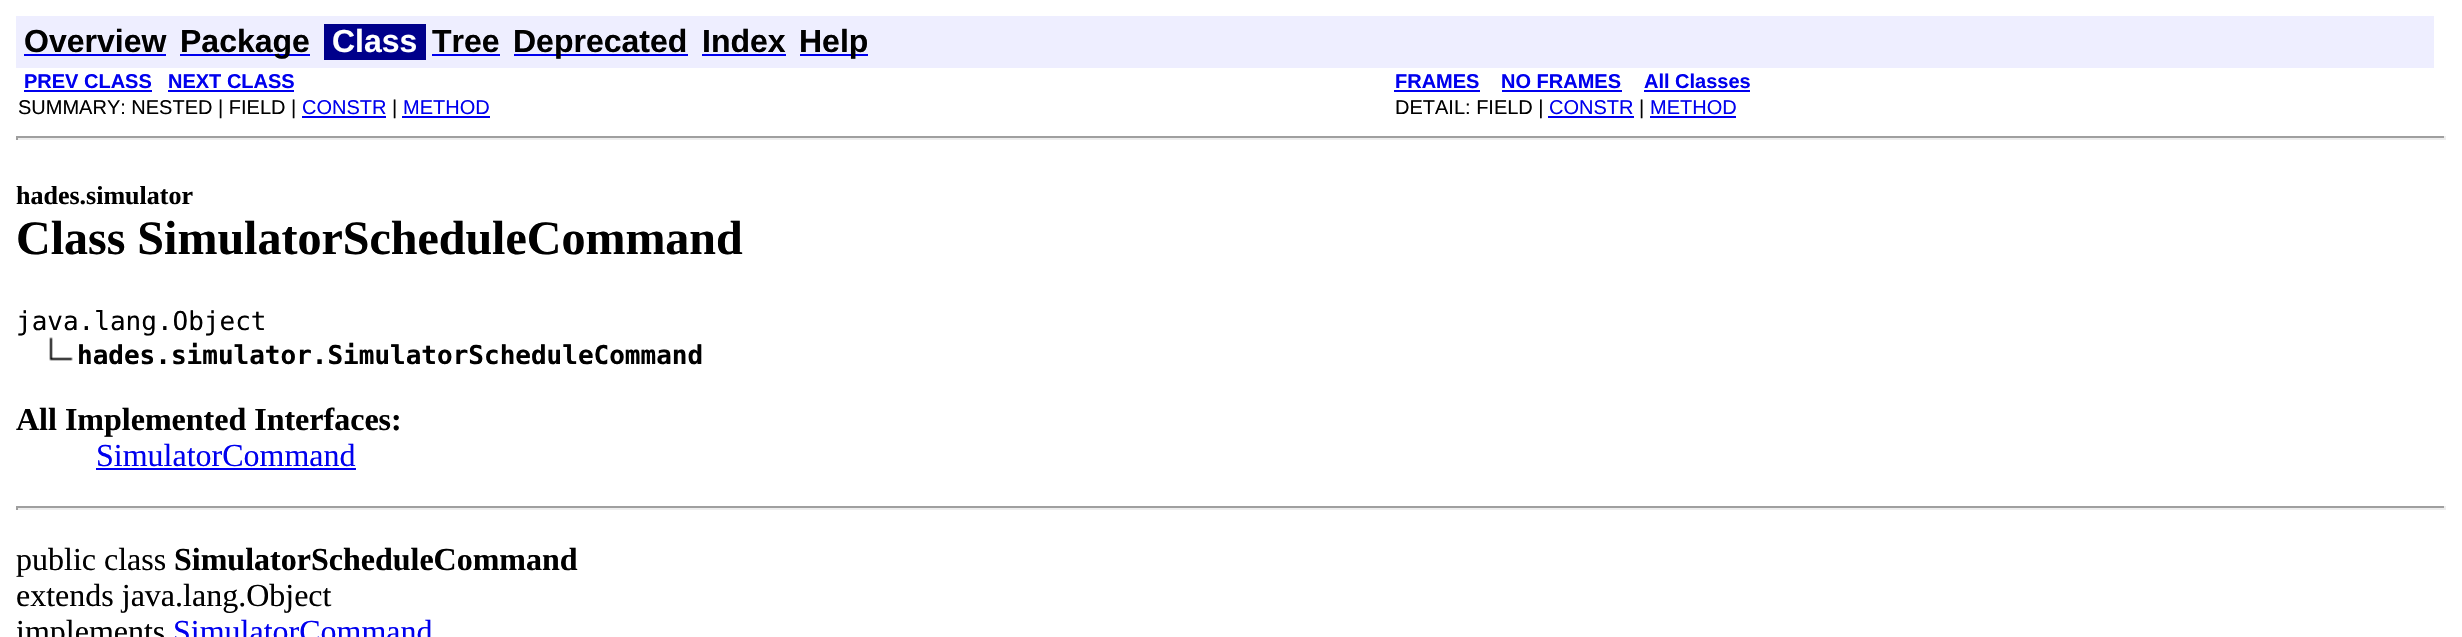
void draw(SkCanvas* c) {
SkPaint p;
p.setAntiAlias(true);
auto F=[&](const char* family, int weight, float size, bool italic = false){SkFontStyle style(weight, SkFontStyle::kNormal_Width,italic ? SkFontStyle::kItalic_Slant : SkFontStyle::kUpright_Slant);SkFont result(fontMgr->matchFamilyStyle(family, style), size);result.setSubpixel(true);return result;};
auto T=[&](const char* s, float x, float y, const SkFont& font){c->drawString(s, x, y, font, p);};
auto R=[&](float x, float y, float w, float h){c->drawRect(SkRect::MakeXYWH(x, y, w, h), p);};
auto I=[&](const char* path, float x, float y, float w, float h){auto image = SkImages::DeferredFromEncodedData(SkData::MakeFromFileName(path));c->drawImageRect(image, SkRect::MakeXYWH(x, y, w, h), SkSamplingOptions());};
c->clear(0xffffffff);
p.setColor(0xffeeeeff);
R(16,16,2418,52);
auto f1 = F("Liberation Sans",700,32);
p.setColor(0xff000000);
T("Overview",24,52,f1);
p.setColor(0xff0000ee);
R(24,54,142,2);
R(180,54,130,2);
p.setColor(0xff000000);
T("Package",180,52,f1);
p.setColor(0xff00008b);
R(324,24,102,36);
p.setColor(0xffffffff);
T("Class",332,52,f1);
p.setColor(0xff000000);
T("Tree",432,52,f1);
p.setColor(0xff0000ee);
R(432,54,68,2);
R(514,54,174,2);
p.setColor(0xff000000);
T("Deprecated",513,52,f1);
T("Index",702,52,f1);
p.setColor(0xff0000ee);
R(702,54,84,2);
R(800,54,68,2);
p.setColor(0xff000000);
T("Help",799,52,f1);
auto f2 = F("Liberation Sans",700,20);
p.setColor(0xff0000ee);
T("PREV CLASS",24,88,f2);
R(24,90,128,2);
T("NEXT CLASS",168,88,f2);
R(168,90,126,2);
T("FRAMES",1395,88,f2);
R(1394,90,86,2);
T("NO FRAMES",1501,88,f2);
R(1502,90,120,2);
T("All Classes",1644,88,f2);
R(1644,90,106,2);
auto f3 = F("Liberation Sans",400,20);
p.setColor(0xff000000);
T("SUMMARY: NESTED | FIELD |",18,114,f3);
p.setColor(0xff0000ee);
T("CONSTR",302,114,f3);
R(302,116,84,2);
p.setColor(0xff000000);
T("|",392,114,f3);
p.setColor(0xff0000ee);
T("METHOD",403,114,f3);
R(402,116,88,2);
p.setColor(0xff000000);
T("DETAIL: FIELD |",1395,114,f3);
p.setColor(0xff0000ee);
T("CONSTR",1549,114,f3);
R(1548,116,86,2);
p.setColor(0xff000000);
T("|",1639,114,f3);
p.setColor(0xff0000ee);
T("METHOD",1650,114,f3);
R(1650,116,86,2);
p.setColor(0xff9f9f9f);
R(16,136,2430,2);
p.setColor(0xffeeeeee);
R(2444,136,2,4);
R(16,138,2430,2);
p.setColor(0xff9f9f9f);
R(16,136,2,4);
auto f4 = F("Liberation Serif",700,26);
p.setColor(0xff000000);
T("hades.simulator",16,204,f4);
auto f5 = F("Liberation Serif",700,48);
T("Class SimulatorScheduleCommand",16,254,f5);
auto f6 = F("DejaVu Sans Mono",400,26);
T("java.lang.Object",16,330,f6);
I("1.png",49,337,24,24);
auto f7 = F("DejaVu Sans Mono",700,26);
T("hades.simulator.SimulatorScheduleCommand",77,364,f7);
auto f8 = F("Liberation Serif",700,32);
T("All Implemented Interfaces:",16,430,f8);
auto f9 = F("Liberation Serif",400,32);
p.setColor(0xff0000ee);
T("SimulatorCommand",96,466,f9);
R(96,468,260,2);
p.setColor(0xff9f9f9f);
R(16,506,2430,2);
p.setColor(0xffeeeeee);
R(2444,506,2,4);
R(16,508,2430,2);
p.setColor(0xff9f9f9f);
R(16,506,2,4);
p.setColor(0xff000000);
T("public class",16,570,f9);
T("SimulatorScheduleCommand",174,570,f8);
T("extends java.lang.Object",16,606,f9);
T("implements",16,642,f9);
p.setColor(0xff0000ee);
T("SimulatorCommand",173,642,f9);
}
